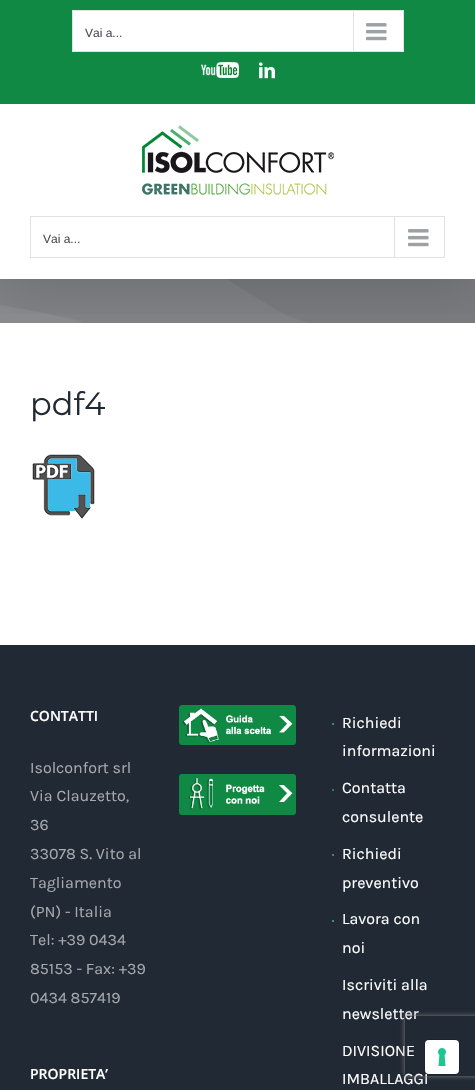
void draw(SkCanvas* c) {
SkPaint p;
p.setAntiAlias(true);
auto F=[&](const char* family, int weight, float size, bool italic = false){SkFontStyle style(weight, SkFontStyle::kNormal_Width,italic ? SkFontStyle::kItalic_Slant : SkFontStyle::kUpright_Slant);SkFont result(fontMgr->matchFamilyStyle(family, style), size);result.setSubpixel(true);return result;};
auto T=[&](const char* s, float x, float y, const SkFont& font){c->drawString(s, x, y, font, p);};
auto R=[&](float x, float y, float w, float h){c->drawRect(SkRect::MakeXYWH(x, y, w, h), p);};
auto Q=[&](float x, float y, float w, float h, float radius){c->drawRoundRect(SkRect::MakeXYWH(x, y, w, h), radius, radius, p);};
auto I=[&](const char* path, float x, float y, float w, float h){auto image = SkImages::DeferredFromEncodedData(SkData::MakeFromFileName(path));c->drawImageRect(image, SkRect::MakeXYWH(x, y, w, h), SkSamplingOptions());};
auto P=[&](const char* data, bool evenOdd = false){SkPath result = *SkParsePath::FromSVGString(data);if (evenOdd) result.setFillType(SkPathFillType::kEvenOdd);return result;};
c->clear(0xffffffff);
I("5.png",0,279,475,44);
c->save();
c->clipRect(SkRect::MakeXYWH(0,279,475,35));
p.setColor(0x24000000);
p.setMaskFilter(SkMaskFilter::MakeBlur(kNormal_SkBlurStyle, 25));
c->drawRect(SkRect::MakeXYWH(2,12,471,275),p);
p.setMaskFilter(nullptr);
c->restore();
p.setColor(0xff0f8944);
R(0,0,475,104);
p.setColor(0xffffffff);
c->drawRect(SkRect::MakeXYWH(72.5,10.5,331,41),p);
p.setStroke(true);
p.setStrokeWidth(1);
p.setColor(0xffe2e2e2);
c->drawRect(SkRect::MakeXYWH(72.5,10.5,331,41),p);
auto f1 = F("Liberation Sans",400,12);
p.setStroke(false);
p.setColor(0xff4a4e57);
T("Vai a...",85,37,f1);
p.setColor(0xffe2e2e2);
R(353,11,1,40);
I("1.png",366,23,21,18);
I("2.png",201,62,38,16);
I("3.png",259,62,16,17);
I("4.png",142,125,192,70);
p.setStroke(true);
c->drawRect(SkRect::MakeXYWH(30.5,216.5,414,41),p);
p.setStroke(false);
p.setColor(0xff4a4e57);
T("Vai a...",43,243,f1);
p.setColor(0xffe2e2e2);
R(394,217,1,40);
I("1.png",408,229,21,18);
auto f2 = F("Montserrat",100,32);
p.setColor(0xff212934);
T("pdf4",30,415,f2);
I("6.png",32,454,63,65);
R(0,645,475,445);
auto f3 = F("Open Sans",600,14);
p.setColor(0xffffffff);
T("CONTATTI",30,721,f3);
auto f4 = F("Karla",400,16);
p.setColor(0xffa6a9ae);
T("Isolconfort srl",30,773,f4);
T("Via Clauzetto,",30,801,f4);
T("36",30,830,f4);
T("33078 S. Vito al",30,859,f4);
T("Tagliamento",30,888,f4);
T("(PN) - Italia",30,917,f4);
T("Tel: +39 0434",30,945,f4);
T("85153 - Fax: +39",30,974,f4);
T("0434 857419",30,1003,f4);
p.setColor(0xffffffff);
T("PROPRIETA’",30,1079,f3);
I("7.png",179,705,117,40);
I("8.png",179,774,117,41);
I("9.png",332,723,2,2);
T("Richiedi",342,728,f4);
T("informazioni",342,756,f4);
I("10.png",332,789,2,2);
T("Contatta",342,793,f4);
T("consulente",342,822,f4);
I("11.png",332,854,2,2);
T("Richiedi",342,859,f4);
T("preventivo",342,888,f4);
I("12.png",332,920,2,2);
T("Lavora con",342,924,f4);
T("noi",342,953,f4);
T("Iscriviti alla",342,990,f4);
T("newsletter",342,1019,f4);
T("DIVISIONE",342,1056,f4);
T("IMBALLAGGI",342,1084,f4);
c->save();
c->clipPath(P("M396 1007h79v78h-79zm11 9h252c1 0 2 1 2 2v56c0 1-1 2-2 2h-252c-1 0-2-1-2-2v-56c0-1 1-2 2-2z",true),true);
p.setColor(0xff808080);
p.setMaskFilter(SkMaskFilter::MakeBlur(kNormal_SkBlurStyle, 2.5));
c->drawRoundRect(SkRect::MakeXYWH(405,1016,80,60),2,2,p);
p.setMaskFilter(nullptr);
c->restore();
p.setStroke(true);
p.setColor(0x26000000);
c->drawRoundRect(SkRect::MakeXYWH(424.5,1039.5,35,35),4.5,4.5,p);
p.setStroke(false);
p.setColor(0xffffffff);
Q(425,1040,34,34,4);
I("13.png",438,1048,8,18);
}
